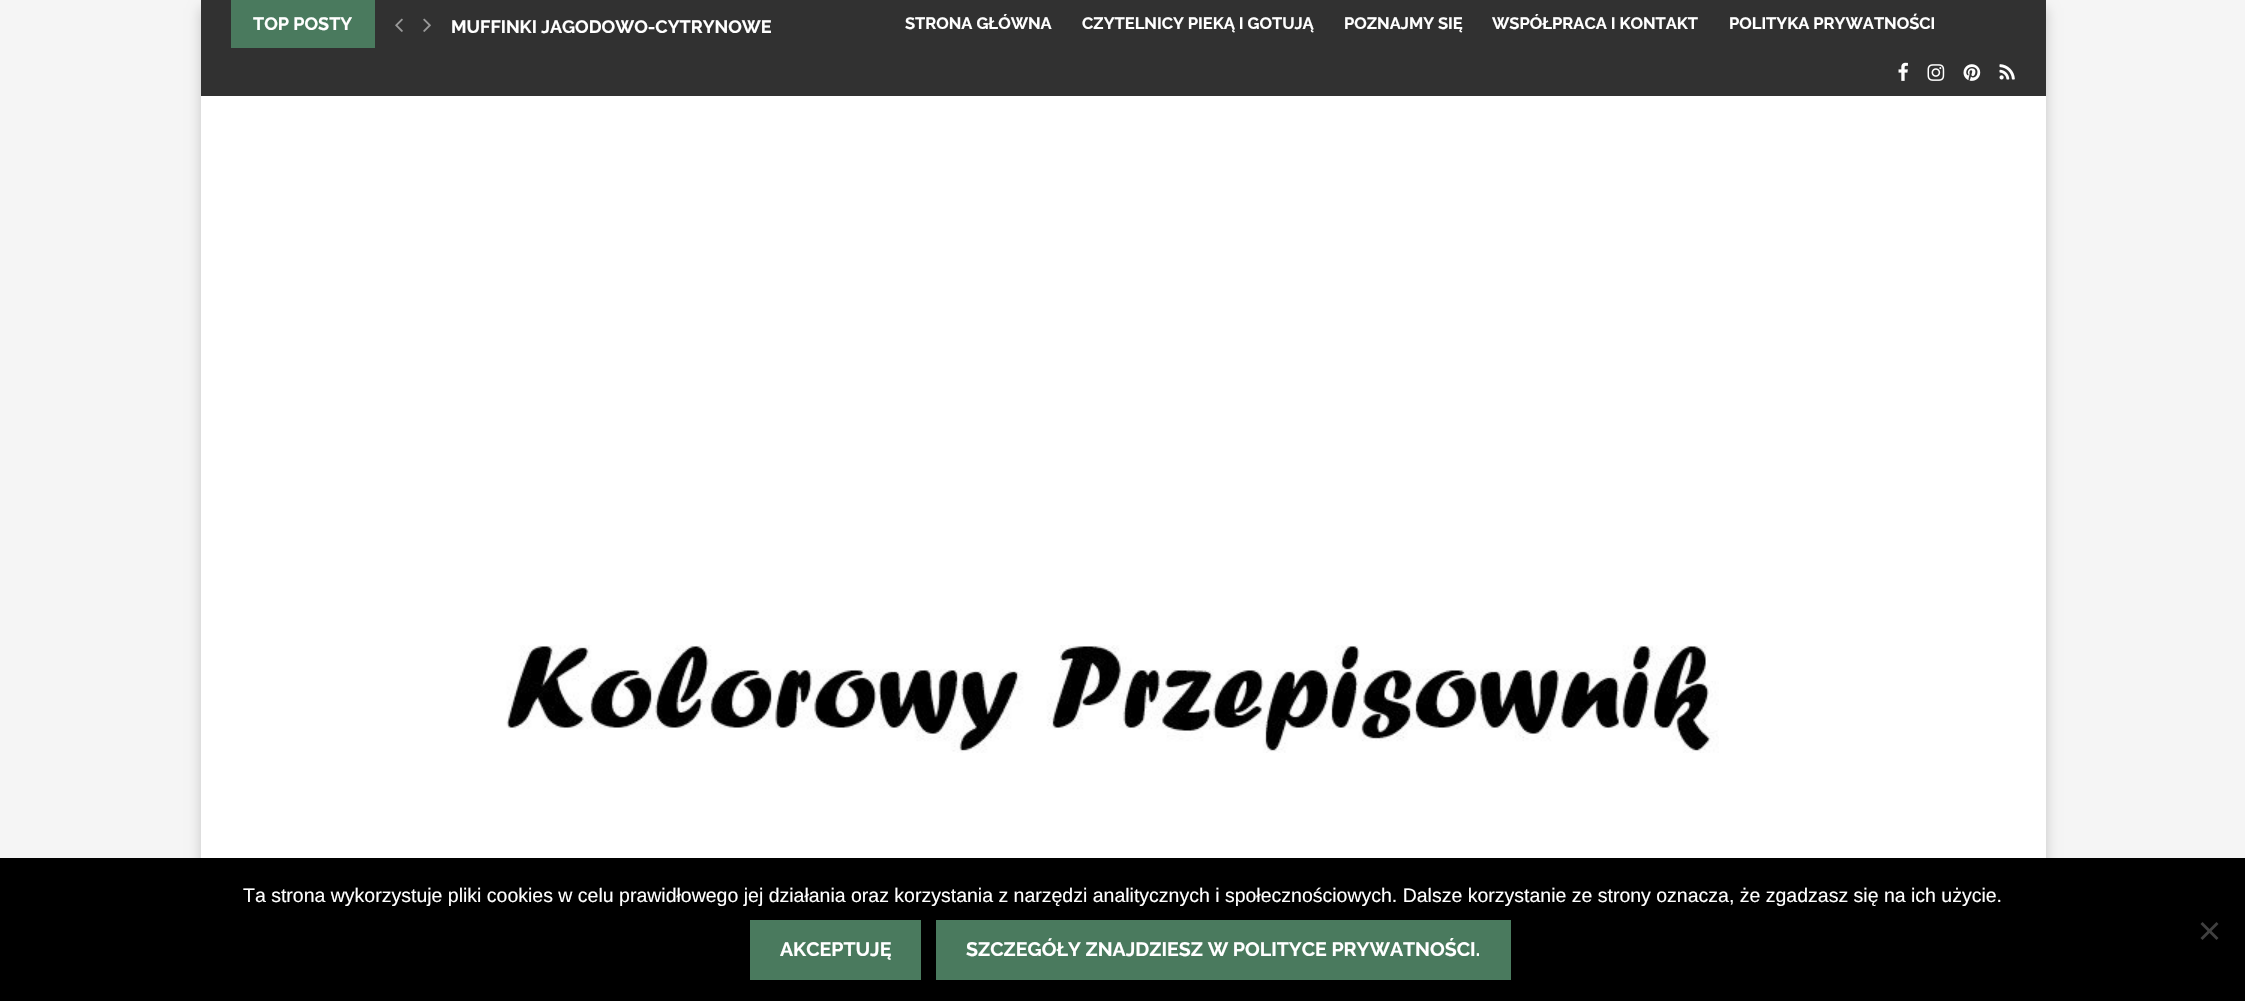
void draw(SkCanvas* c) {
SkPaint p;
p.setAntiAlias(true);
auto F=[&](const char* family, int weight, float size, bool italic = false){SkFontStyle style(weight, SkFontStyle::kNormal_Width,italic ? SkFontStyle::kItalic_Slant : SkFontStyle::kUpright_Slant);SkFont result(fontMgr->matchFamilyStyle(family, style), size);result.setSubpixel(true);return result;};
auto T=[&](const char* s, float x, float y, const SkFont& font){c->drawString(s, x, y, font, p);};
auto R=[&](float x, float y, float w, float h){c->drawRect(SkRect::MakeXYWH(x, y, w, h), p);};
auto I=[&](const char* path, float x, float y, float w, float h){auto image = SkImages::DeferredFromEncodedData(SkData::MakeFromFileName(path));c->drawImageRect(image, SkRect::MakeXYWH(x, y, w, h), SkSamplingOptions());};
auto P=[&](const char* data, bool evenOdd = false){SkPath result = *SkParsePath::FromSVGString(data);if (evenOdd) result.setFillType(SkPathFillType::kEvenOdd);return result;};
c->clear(0xfff5f5f5);
p.setColor(0x33000000);
p.setMaskFilter(SkMaskFilter::MakeBlur(kNormal_SkBlurStyle, 6));
c->drawRect(SkRect::MakeXYWH(201,8,1845,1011),p);
p.setMaskFilter(nullptr);
p.setColor(0xffffffff);
R(201,96,1845,762);
p.setColor(0xff313131);
R(201,0,1845,96);
p.setColor(0xff4a7a5e);
R(231,0,144,48);
auto f1 = F("Raleway",700,18);
p.setColor(0xffffffff);
T("TOP POSTY",253,30,f1);
I("1.png",395,18,8,14);
I("2.png",423,18,8,14);
T("MUFFINKI JAGODOWO-CYTRYNOWE",451,33,f1);
auto f2 = F("Raleway",700,16.5);
T("STRONA GŁÓWNA",905,29,f2);
T("CZYTELNICY PIEKĄ I GOTUJĄ",1082,29,f2);
T("POZNAJMY SIĘ",1344,29,f2);
T("WSPÓŁPRACA I KONTAKT",1492,29,f2);
T("POLITYKA PRYWATNOŚCI",1729,29,f2);
I("3.png",1898,62,10,19);
I("4.png",1927,64,18,17);
I("5.png",1963,64,18,17);
I("6.png",1999,64,16,16);
I("7.png",506,645,1213,108);
p.setColor(0xff000000);
R(0,858,2245,143);
auto f3 = F("Liberation Sans",400,19.5);
p.setColor(0xffffffff);
T("Ta strona wykorzystuje pliki cookies w celu prawidłowego jej działania oraz korzystania z narzędzi analitycznych i społecznościowych. Dalsze korzystanie ze strony oznacza, że zgadzasz się na ich użycie.",243,902,f3);
p.setColor(0xff404040);
c->drawPath(P("M2216.5 922l2 2l-16 16l-2-2z"),p);
c->drawPath(P("M2200.5 924l2-2l16 16l-2 2z"),p);
p.setColor(0xff4a7a5e);
R(750,920,171,60);
auto f4 = F("Raleway",700,19.5);
p.setColor(0xffffffff);
T("AKCEPTUJĘ",780,956,f4);
p.setColor(0xff4a7a5e);
R(936,920,575,60);
p.setColor(0xffffffff);
T("SZCZEGÓŁY ZNAJDZIESZ W POLITYCE PRYWATNOŚCI.",966,956,f4);
}
